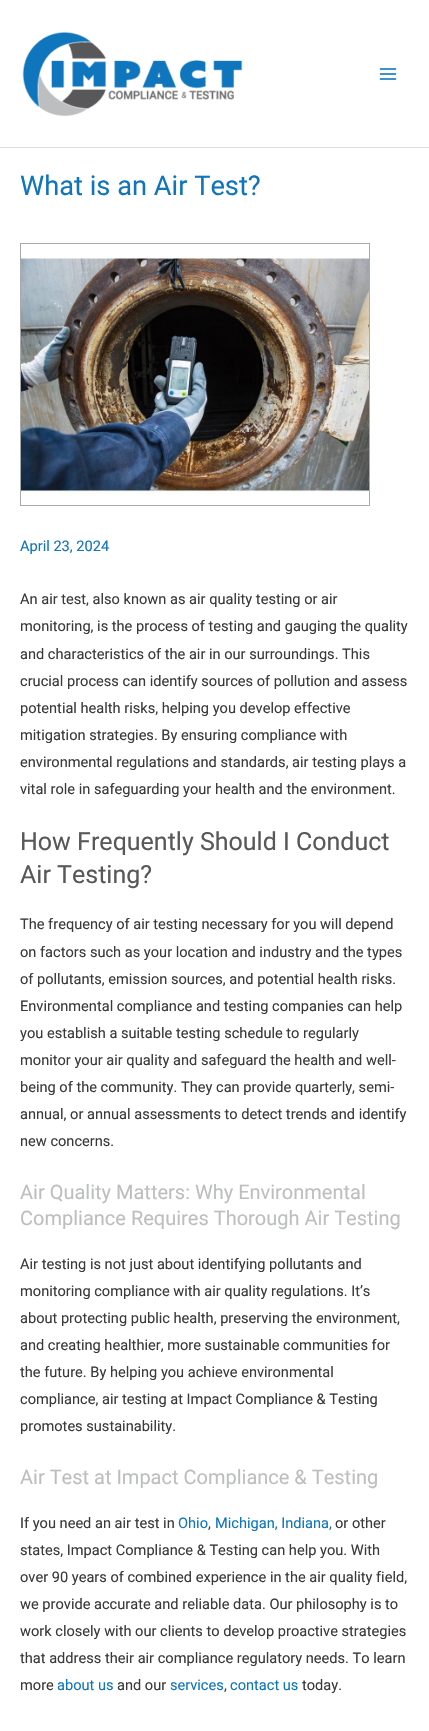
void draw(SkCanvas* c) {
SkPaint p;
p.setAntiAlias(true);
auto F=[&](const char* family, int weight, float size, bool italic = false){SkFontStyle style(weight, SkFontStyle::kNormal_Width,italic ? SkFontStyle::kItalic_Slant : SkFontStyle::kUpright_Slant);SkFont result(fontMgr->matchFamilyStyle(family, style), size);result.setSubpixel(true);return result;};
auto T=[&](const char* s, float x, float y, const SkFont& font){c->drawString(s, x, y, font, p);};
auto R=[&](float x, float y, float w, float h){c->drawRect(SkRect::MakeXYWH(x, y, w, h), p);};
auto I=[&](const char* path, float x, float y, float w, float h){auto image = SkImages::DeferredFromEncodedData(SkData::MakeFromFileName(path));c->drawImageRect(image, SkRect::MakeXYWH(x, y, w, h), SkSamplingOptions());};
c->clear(0xffffffff);
p.setColor(0xffdddddd);
R(0,147,429,1);
I("1.png",22,31,221,85);
I("2.png",379,68,18,12);
auto f1 = F("Roboto",400,27.25);
p.setColor(0xff0f75bc);
T("What is an Air Test?",20,195,f1);
p.setStroke(true);
p.setStrokeWidth(1);
p.setColor(0xffa9a9a9);
c->drawRect(SkRect::MakeXYWH(20.5,243.5,349,262),p);
I("3.png",21,258,348,237);
auto f2 = F("Roboto",400,14.6);
p.setStroke(false);
p.setColor(0xff0f75bc);
T("April 23, 2024",20,551,f2);
p.setColor(0xff3a3a3a);
T("An air test, also known as air quality testing or air",20,604,f2);
T("monitoring, is the process of testing and gauging the quality",20,631,f2);
T("and characteristics of the air in our surroundings. This",20,659,f2);
T("crucial process can identify sources of pollution and assess",20,686,f2);
T("potential health risks, helping you develop effective",20,713,f2);
T("mitigation strategies. By ensuring compliance with",20,740,f2);
T("environmental regulations and standards, air testing plays a",20,767,f2);
T("vital role in safeguarding your health and the environment.",20,794,f2);
auto f3 = F("Roboto",400,25);
p.setColor(0xff58585a);
T("How Frequently Should I Conduct",20,850,f3);
T("Air Testing?",20,883,f3);
p.setColor(0xff3a3a3a);
T("The frequency of air testing necessary for you will depend",20,929,f2);
T("on factors such as your location and industry and the types",20,957,f2);
T("of pollutants, emission sources, and potential health risks.",20,984,f2);
T("Environmental compliance and testing companies can help",20,1011,f2);
T("you establish a suitable testing schedule to regularly",20,1038,f2);
T("monitor your air quality and safeguard the health and well-",20,1065,f2);
T("being of the community. They can provide quarterly, semi-",20,1092,f2);
T("annual, or annual assessments to detect trends and identify",20,1119,f2);
T("new concerns.",20,1146,f2);
auto f4 = F("Roboto",400,20);
p.setColor(0xffbdbec0);
T("Air Quality Matters: Why Environmental",20,1199,f4);
T("Compliance Requires Thorough Air Testing",20,1225,f4);
p.setColor(0xff3a3a3a);
T("Air testing is not just about identifying pollutants and",20,1269,f2);
T("monitoring compliance with air quality regulations. It’s",20,1296,f2);
T("about protecting public health, preserving the environment,",20,1323,f2);
T("and creating healthier, more sustainable communities for",20,1350,f2);
T("the future. By helping you achieve environmental",20,1377,f2);
T("compliance, air testing at Impact Compliance & Testing",20,1404,f2);
T("promotes sustainability.",20,1431,f2);
p.setColor(0xffbdbec0);
T("Air Test at Impact Compliance & Testing",20,1484,f4);
p.setColor(0xff3a3a3a);
T("If you need an air test in",20,1528,f2);
p.setColor(0xff0f75bc);
T("Ohio",178,1528,f2);
p.setColor(0xff3a3a3a);
T(",",208,1528,f2);
p.setColor(0xff0f75bc);
T("Michigan, Indiana,",215,1528,f2);
p.setColor(0xff3a3a3a);
T("or other",335,1528,f2);
T("states, Impact Compliance & Testing can help you. With",20,1555,f2);
T("over 90 years of combined experience in the air quality field,",20,1582,f2);
T("we provide accurate and reliable data. Our philosophy is to",20,1609,f2);
T("work closely with our clients to develop proactive strategies",20,1636,f2);
T("that address their air compliance regulatory needs. To learn",20,1663,f2);
T("more",20,1690,f2);
p.setColor(0xff0f75bc);
T("about us",57,1690,f2);
p.setColor(0xff3a3a3a);
T("and our",117,1690,f2);
p.setColor(0xff0f75bc);
T("services",170,1690,f2);
p.setColor(0xff3a3a3a);
T(",",224,1690,f2);
p.setColor(0xff0f75bc);
T("contact us",230,1690,f2);
p.setColor(0xff3a3a3a);
T("today.",302,1690,f2);
}
